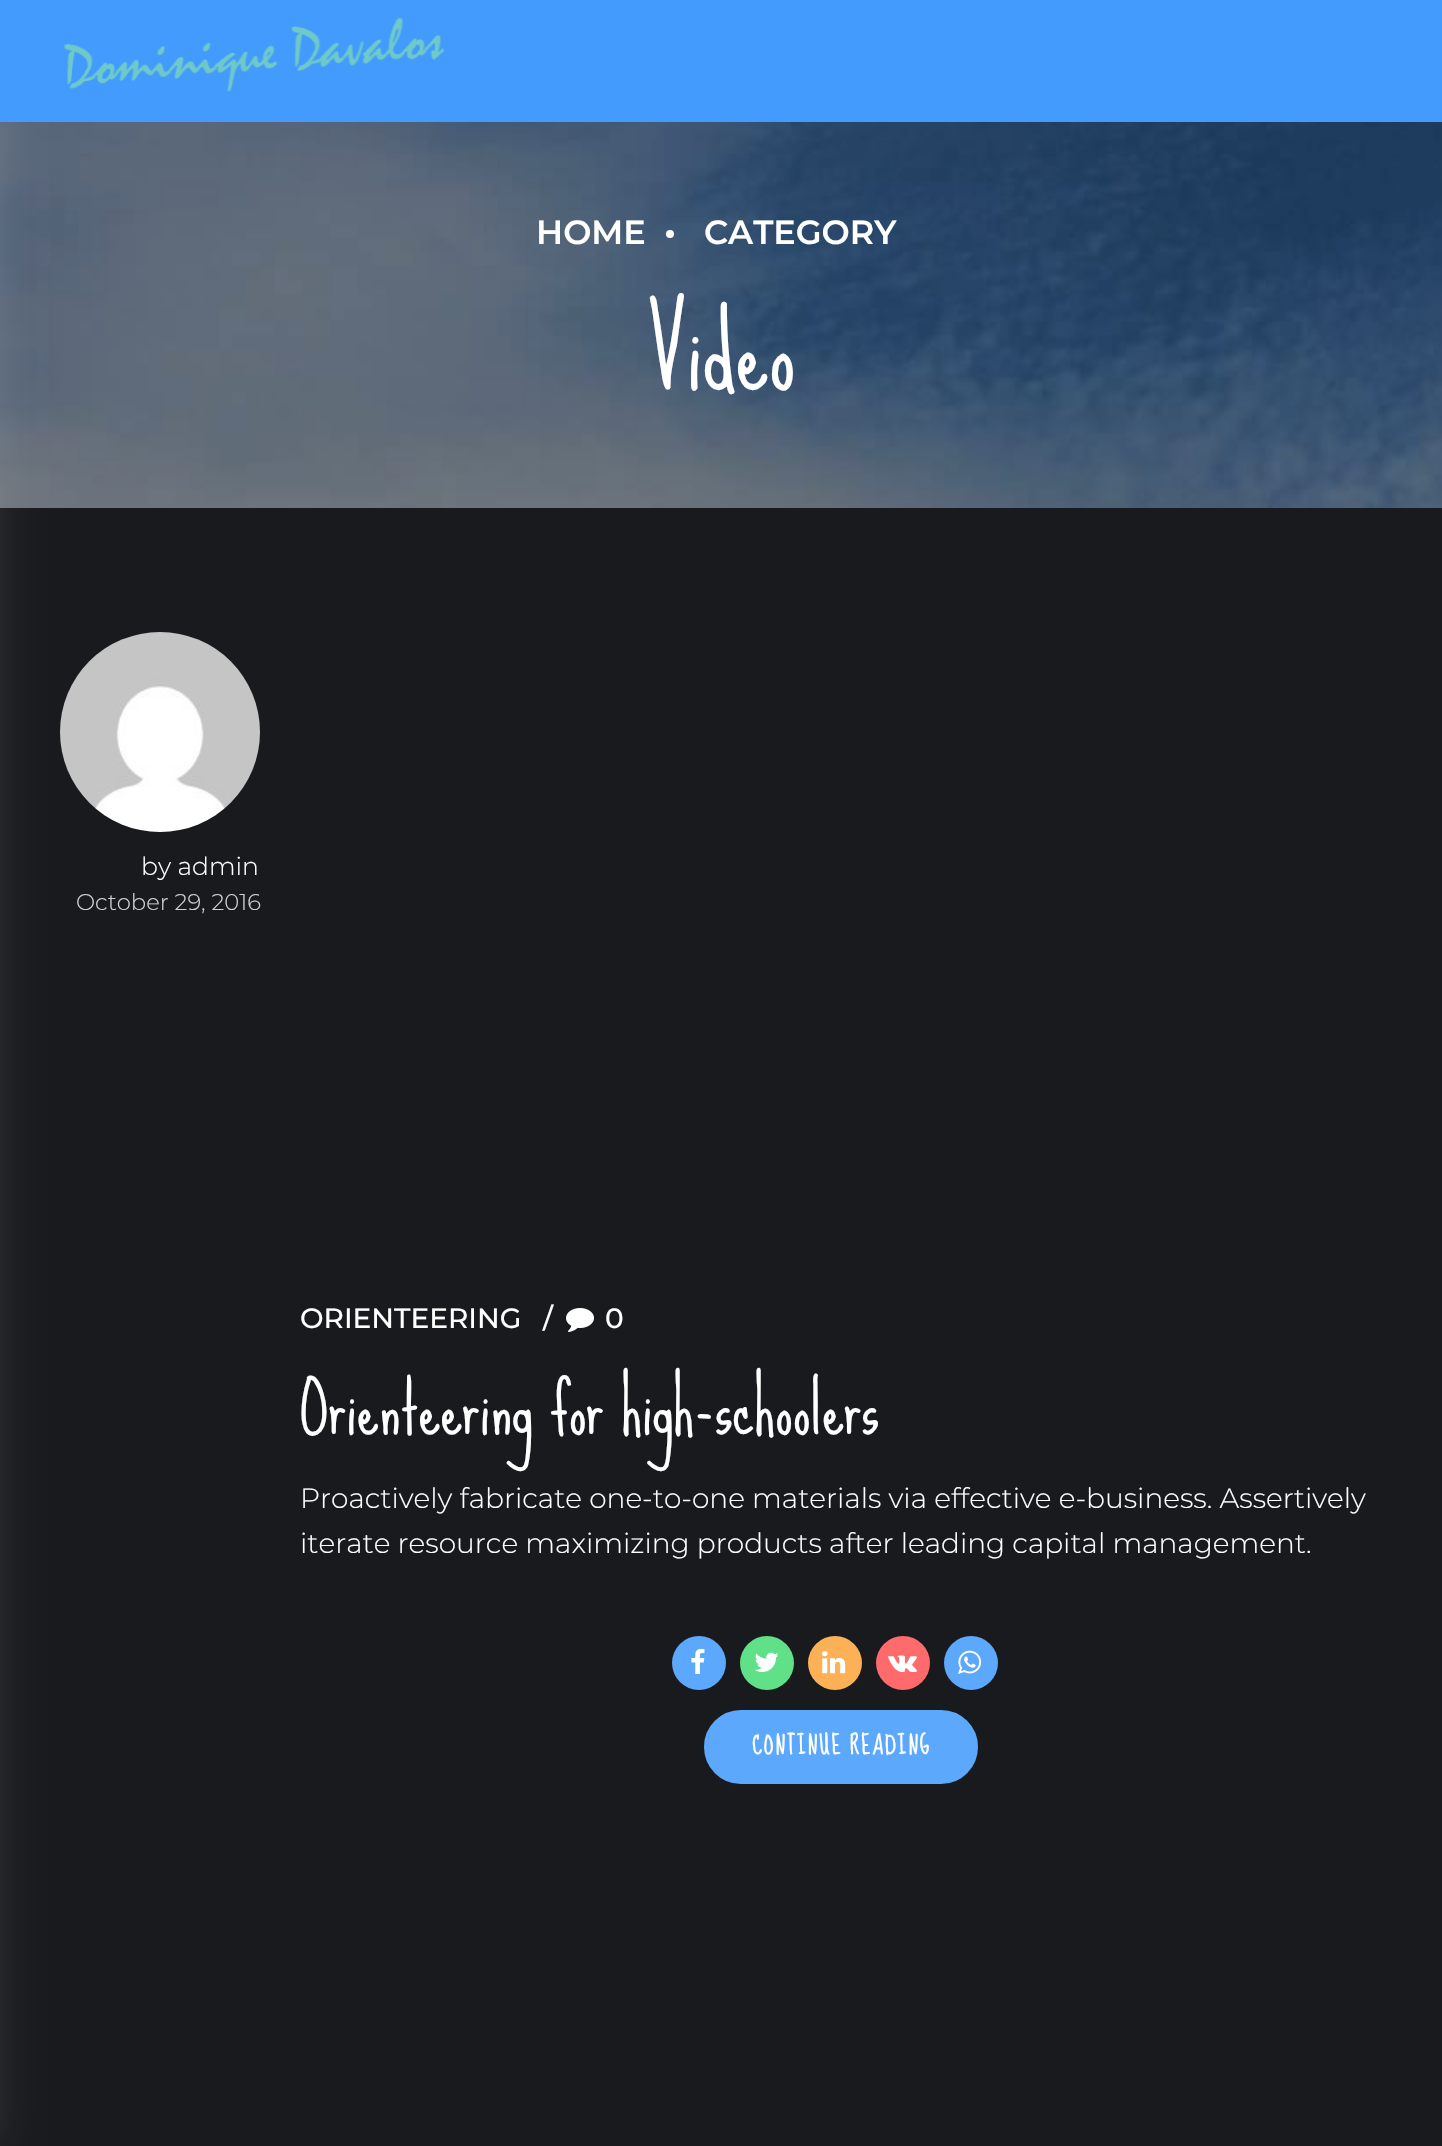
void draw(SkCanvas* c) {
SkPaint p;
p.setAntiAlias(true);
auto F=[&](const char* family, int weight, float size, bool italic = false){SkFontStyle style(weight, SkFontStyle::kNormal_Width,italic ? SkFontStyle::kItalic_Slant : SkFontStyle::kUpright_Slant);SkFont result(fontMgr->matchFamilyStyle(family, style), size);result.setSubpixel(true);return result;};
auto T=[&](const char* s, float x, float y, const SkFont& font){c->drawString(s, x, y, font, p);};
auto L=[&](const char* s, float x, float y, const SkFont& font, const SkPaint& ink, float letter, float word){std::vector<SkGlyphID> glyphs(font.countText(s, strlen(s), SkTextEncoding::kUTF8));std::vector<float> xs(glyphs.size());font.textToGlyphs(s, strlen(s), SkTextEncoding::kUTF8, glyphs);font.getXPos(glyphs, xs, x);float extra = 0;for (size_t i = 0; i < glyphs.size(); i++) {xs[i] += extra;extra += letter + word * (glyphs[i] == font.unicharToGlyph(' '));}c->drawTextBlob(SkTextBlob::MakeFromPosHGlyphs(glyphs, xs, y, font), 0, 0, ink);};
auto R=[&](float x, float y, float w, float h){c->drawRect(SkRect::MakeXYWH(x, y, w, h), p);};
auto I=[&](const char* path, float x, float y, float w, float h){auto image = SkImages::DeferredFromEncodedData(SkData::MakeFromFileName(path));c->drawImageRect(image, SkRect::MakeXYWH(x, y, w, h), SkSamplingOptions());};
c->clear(0xff181a1e);
I("2.png",0,122,1442,386);
I("3.png",60,632,200,200);
p.setColor(0x1affffff);
p.setMaskFilter(SkMaskFilter::MakeBlur(kNormal_SkBlurStyle, 20));
c->drawRect(SkRect::MakeXYWH(-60,0,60,2146),p);
p.setMaskFilter(nullptr);
p.setColor(0xff429bfd);
R(0,0,1442,122);
I("1.png",64,17,381,75);
auto f1 = F("Montserrat",600,33.5);
p.setColor(0xffffffff);
T("HOME",536,244,f1);
c->drawCircle(670,234,4,p);
T("CATEGORY",704,244,f1);
auto f2 = F("Sue Ellen Francisco",400,105);
T("Video",646,389,f2);
auto f3 = F("Montserrat",300,25);
T("by admin",141,875,f3);
auto f4 = F("Montserrat",300,22.75);
p.setColor(0xffd1d1d2);
T("October 29, 2016",76,910,f4);
auto f5 = F("Montserrat",500,28);
p.setColor(0xffffffff);
T("ORIENTEERING",300,1328,f5);
T("/",543,1328,f5);
I("4.png",566,1308,28,24);
T("0",605,1328,f5);
auto f6 = F("Sue Ellen Francisco",400,70);
T("Orienteering for high-schoolers",300,1434,f6);
auto f7 = F("Montserrat",300,28);
T("Proactively fabricate one-to-one materials via effective e-business. Assertively",300,1508,f7);
T("iterate resource maximizing products after leading capital management.",300,1553,f7);
p.setColor(0xff5ba8fd);
c->drawCircle(699,1663,27,p);
I("5.png",691,1648,14,26);
p.setColor(0xff60e188);
c->drawCircle(767,1663,27,p);
I("6.png",754,1652,25,20);
p.setColor(0xfffdb157);
c->drawCircle(835,1663,27,p);
I("7.png",822,1651,24,23);
p.setColor(0xffff6b6d);
c->drawCircle(903,1663,27,p);
I("8.png",888,1655,29,17);
p.setColor(0xff5ba8fd);
c->drawCircle(971,1663,27,p);
I("9.png",958,1650,24,24);
c->drawRoundRect(SkRect::MakeXYWH(706,1712,270,70),35,35,p);
p.setStroke(true);
p.setStrokeWidth(4);
c->drawRoundRect(SkRect::MakeXYWH(706,1712,270,70),35,35,p);
auto f8 = F("Sue Ellen Francisco",700,22.5);
p.setStroke(false);
p.setColor(0xffffffff);
L("CONTINUE READING",752,1754,f8,p,2,0);
}
